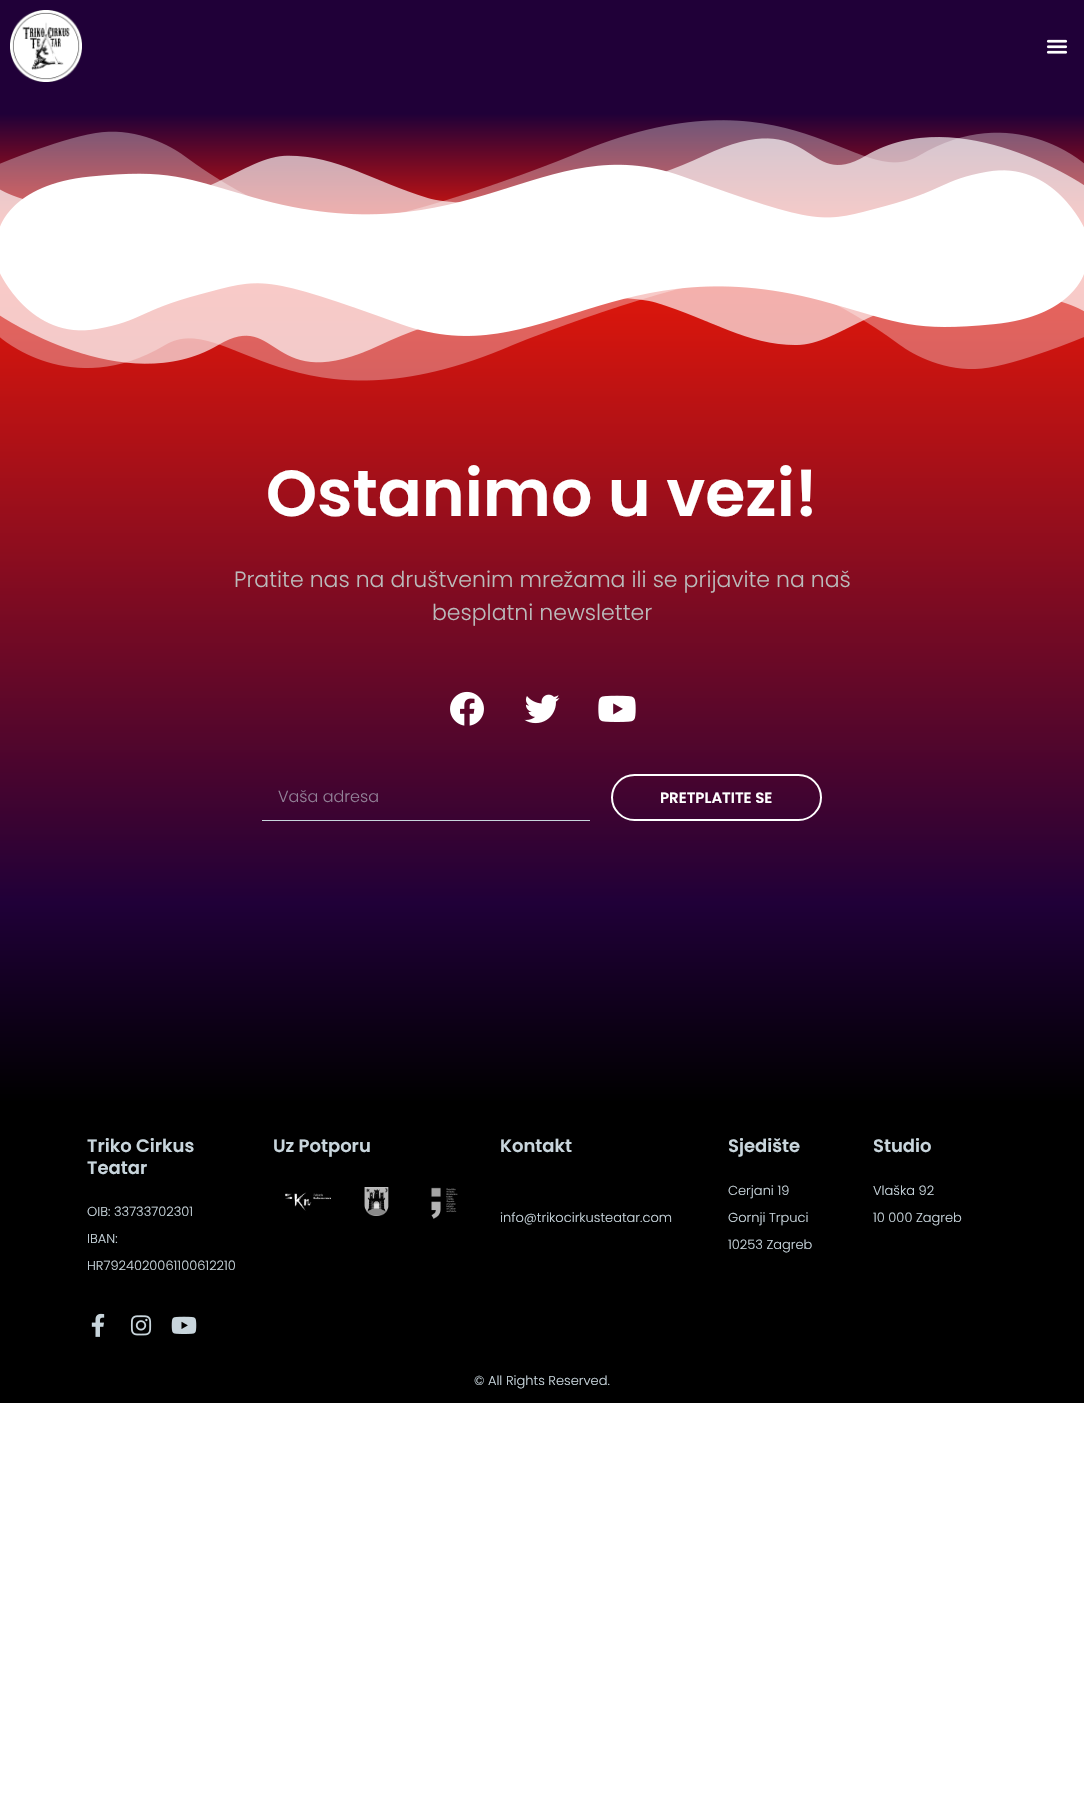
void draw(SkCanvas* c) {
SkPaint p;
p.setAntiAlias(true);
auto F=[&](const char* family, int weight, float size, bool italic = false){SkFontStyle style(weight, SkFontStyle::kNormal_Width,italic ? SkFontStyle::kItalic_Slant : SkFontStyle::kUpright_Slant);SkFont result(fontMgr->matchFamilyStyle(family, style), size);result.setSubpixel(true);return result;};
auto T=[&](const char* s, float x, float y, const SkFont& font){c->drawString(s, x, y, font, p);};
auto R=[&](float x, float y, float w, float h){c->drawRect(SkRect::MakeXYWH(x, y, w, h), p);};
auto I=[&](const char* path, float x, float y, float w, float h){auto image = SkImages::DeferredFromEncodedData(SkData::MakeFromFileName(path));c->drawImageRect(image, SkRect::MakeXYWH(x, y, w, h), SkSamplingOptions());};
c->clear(0xffffffff);
{
const SkColor colors[] = {0xff200038,0xffe3170a};
const float stops[] = {.5,1};
const SkPoint ends[] = {{542,0}, {542,228}};
p.setShader(SkGradientShader::MakeLinear(ends, colors, stops, 2, SkTileMode::kClamp));
p.setAlpha(255);
}
R(0,0,1084,228);
I("1.png",10,10,72,72);
I("2.png",1046,39,22,15);
I("3.png",0,120,1084,108);
{
const SkColor colors[] = {0xffe3170a,0xff200038};
const float stops[] = {0,1};
const SkPoint ends[] = {{542,273}, {542,903}};
p.setShader(SkGradientShader::MakeLinear(ends, colors, stops, 2, SkTileMode::kClamp));
p.setAlpha(255);
}
R(0,273,1084,630);
I("4.png",0,273,1084,108);
auto f1 = F("Poppins",600,65);
p.setShader(nullptr);
p.setColor(0xffffffff);
T("Ostanimo u vezi!",266,516,f1);
auto f2 = F("Poppins",300,22);
p.setColor(0xffbbbbbb);
T("Pratite nas na društvenim mrežama ili se prijavite na naš",234,587,f2);
T("besplatni newsletter",432,620,f2);
I("5.png",450,691,34,35);
I("6.png",524,694,36,30);
I("7.png",598,695,38,27);
p.setColor(0xffc8d5dc);
R(262,820,328,1);
auto f3 = F("Poppins",300,16);
p.setColor(0xff928197);
T("Vaša adresa",278,802,f3);
p.setStroke(true);
p.setStrokeWidth(2);
p.setColor(0xffffffff);
c->drawRoundRect(SkRect::MakeXYWH(612,775,209,45),22.5,22.5,p);
auto f4 = F("Poppins",600,15);
p.setStroke(false);
T("PRETPLATITE SE",660,803,f4);
{
const SkColor colors[] = {0xff200038,0xff000000};
const float stops[] = {0,1};
const SkPoint ends[] = {{542,903}, {542,1103}};
p.setShader(SkGradientShader::MakeLinear(ends, colors, stops, 2, SkTileMode::kClamp));
p.setAlpha(255);
}
R(0,903,1084,200);
p.setShader(nullptr);
p.setColor(0xff000000);
R(0,1103,1084,300);
auto f5 = F("Poppins",600,18);
p.setColor(0xffc8d5dc);
T("Triko Cirkus",87,1152,f5);
T("Teatar",87,1174,f5);
auto f6 = F("Poppins",300,13);
T("OIB: 33733702301",87,1216,f6);
T("IBAN:",87,1243,f6);
T("HR7924020061100612210",87,1270,f6);
I("8.png",91,1313,14,24);
I("9.png",130,1315,22,21);
I("10.png",171,1316,26,18);
T("Uz Potporu",273,1152,f5);
I("11.png",285,1192,46,19);
I("12.png",364,1187,25,29);
I("13.png",431,1187,27,32);
T("Kontakt",500,1152,f5);
T("info@trikocirkusteatar.com",500,1222,f6);
T("Sjedište",728,1152,f5);
T("Cerjani 19",728,1195,f6);
T("Gornji Trpuci",728,1222,f6);
T("10253 Zagreb",728,1249,f6);
T("Studio",873,1152,f5);
T("Vlaška 92",873,1195,f6);
T("10 000 Zagreb",873,1222,f6);
T("© All Rights Reserved.",474,1385,f6);
}
